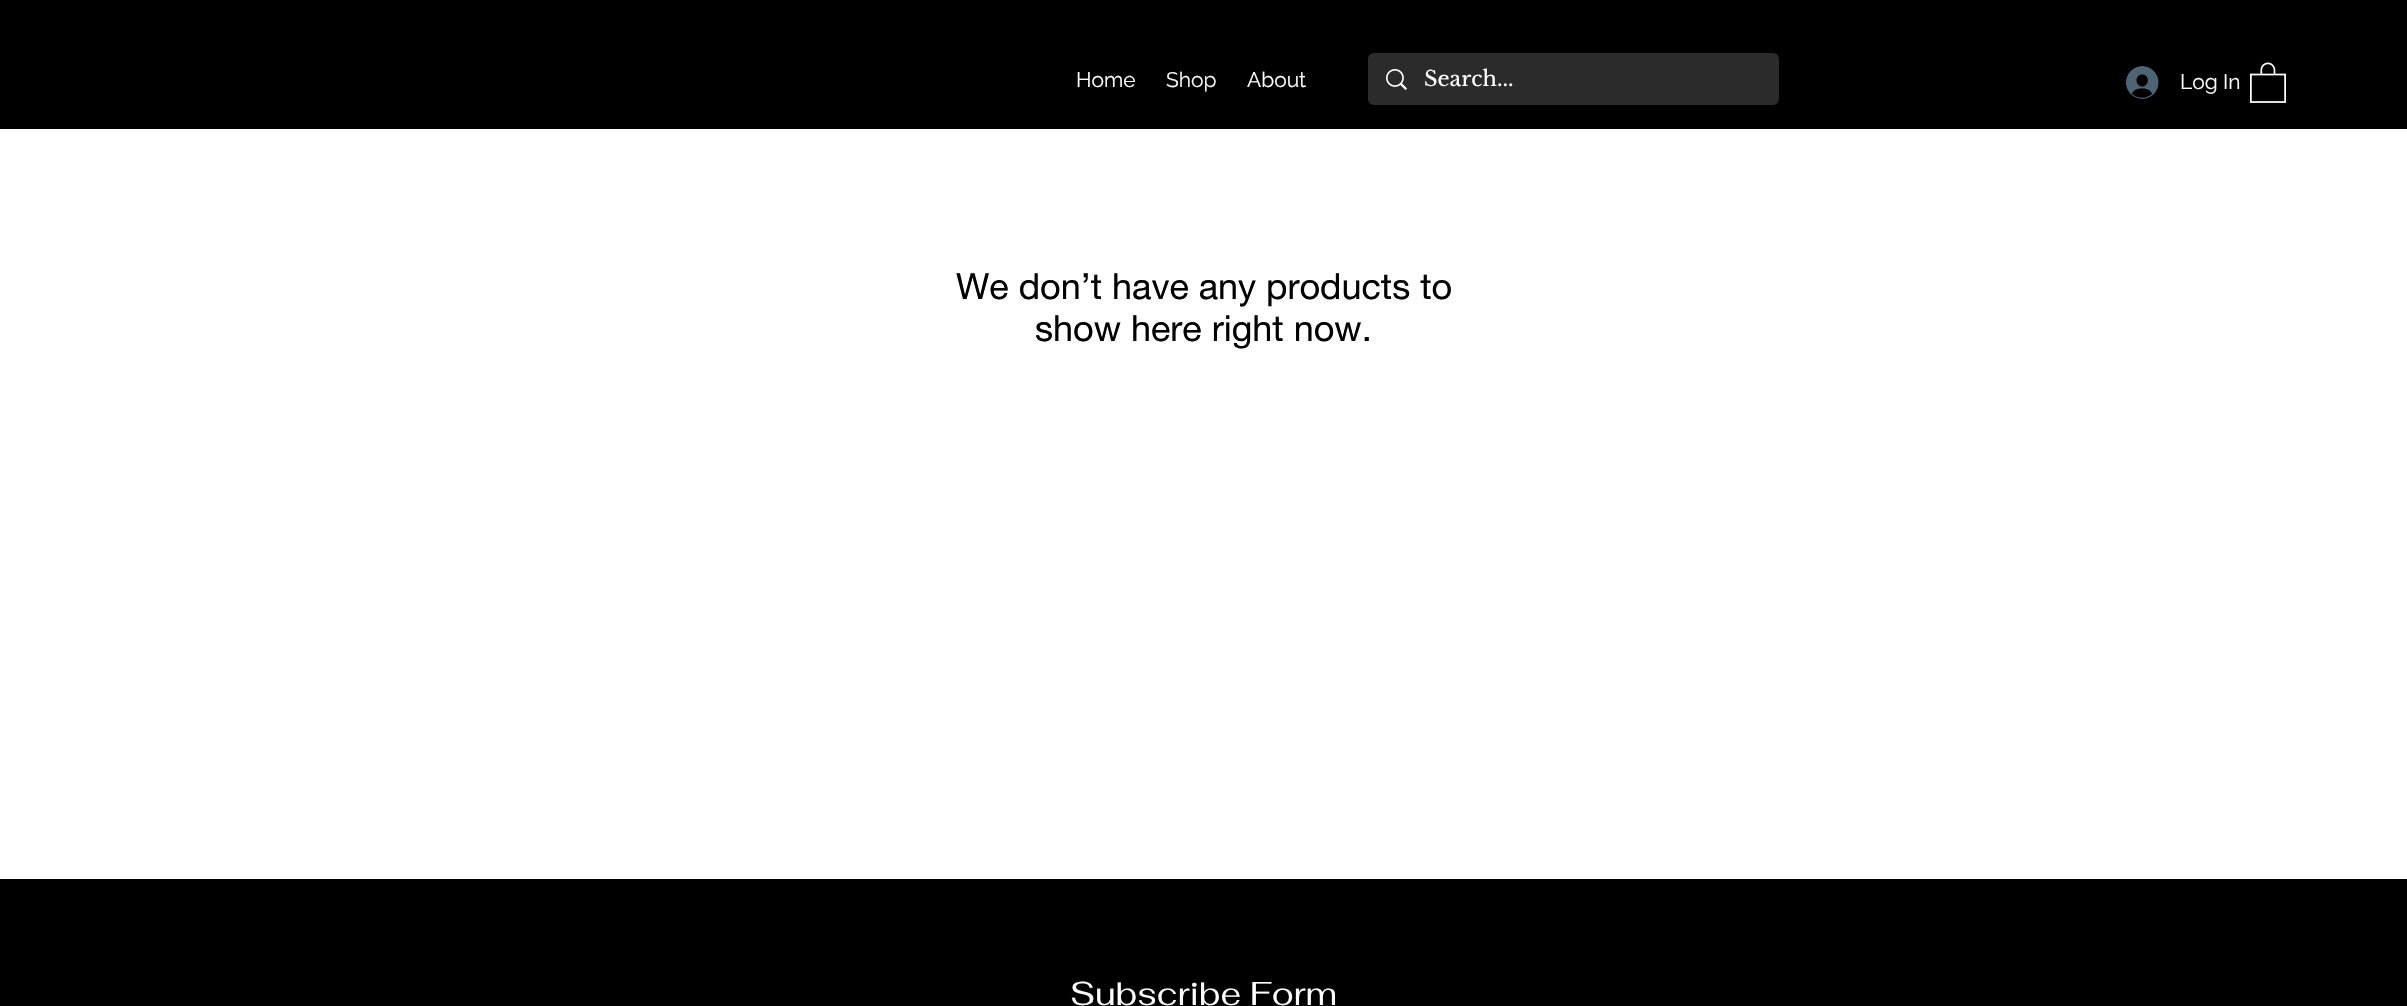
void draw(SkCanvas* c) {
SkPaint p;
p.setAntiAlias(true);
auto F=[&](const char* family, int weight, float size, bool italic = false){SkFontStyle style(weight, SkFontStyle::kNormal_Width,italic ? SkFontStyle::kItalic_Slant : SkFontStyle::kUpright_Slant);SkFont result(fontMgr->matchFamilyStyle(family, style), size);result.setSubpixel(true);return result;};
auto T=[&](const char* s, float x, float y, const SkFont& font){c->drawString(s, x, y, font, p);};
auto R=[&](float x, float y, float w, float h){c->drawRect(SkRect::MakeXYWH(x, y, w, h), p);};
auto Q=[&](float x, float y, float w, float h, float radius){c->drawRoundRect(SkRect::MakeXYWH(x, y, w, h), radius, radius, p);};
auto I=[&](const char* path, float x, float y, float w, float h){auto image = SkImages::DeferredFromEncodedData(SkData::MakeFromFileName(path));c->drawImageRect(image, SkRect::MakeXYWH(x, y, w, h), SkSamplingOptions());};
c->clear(0xffffffff);
p.setColor(0xff000000);
R(0,0,2407,129);
auto f1 = F("Raleway",400,21);
p.setColor(0xffffffff);
T("Home",1076,87,f1);
p.setColor(0xfff7f7f7);
T("Shop",1166,87,f1);
p.setColor(0xffffffff);
T("About",1247,87,f1);
p.setColor(0xff2b2b2b);
Q(1368,53,411,52,6);
I("1.png",1386,69,21,21);
auto f2 = F("Libre Baskerville",400,21);
p.setColor(0xffffffff);
T("Search...",1424,86,f2);
I("2.png",2126,66,33,33);
T("Log In",2180,89,f1);
I("3.png",2250,62,36,41);
auto f3 = F("helvetica neue",400,36);
p.setColor(0xff000000);
T("We don’t have any products to",956,299,f3);
T("show here right now.",1035,341,f3);
R(0,879,2407,127);
auto f4 = F("Fahkwang",400,33);
p.setColor(0xffffffff);
T("Subscribe Form",1070,1005,f4);
}
